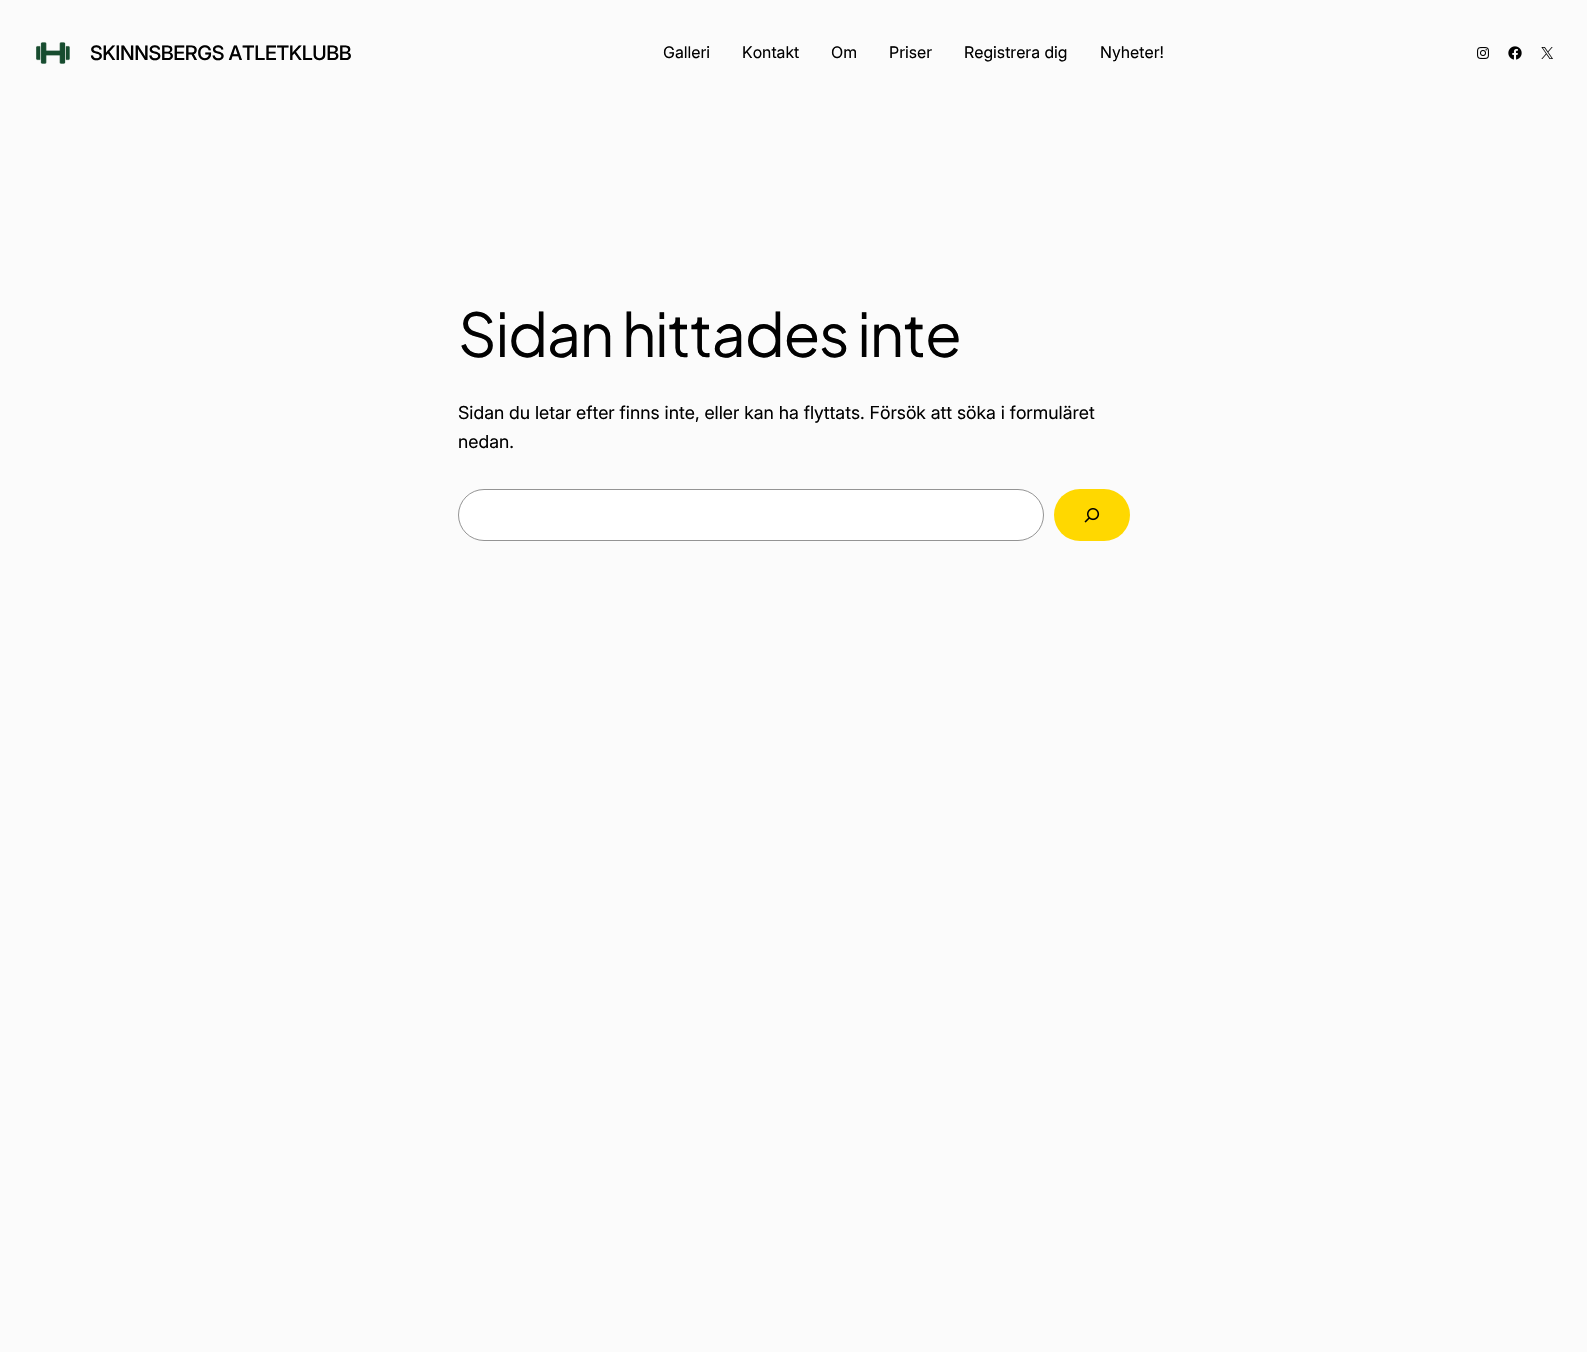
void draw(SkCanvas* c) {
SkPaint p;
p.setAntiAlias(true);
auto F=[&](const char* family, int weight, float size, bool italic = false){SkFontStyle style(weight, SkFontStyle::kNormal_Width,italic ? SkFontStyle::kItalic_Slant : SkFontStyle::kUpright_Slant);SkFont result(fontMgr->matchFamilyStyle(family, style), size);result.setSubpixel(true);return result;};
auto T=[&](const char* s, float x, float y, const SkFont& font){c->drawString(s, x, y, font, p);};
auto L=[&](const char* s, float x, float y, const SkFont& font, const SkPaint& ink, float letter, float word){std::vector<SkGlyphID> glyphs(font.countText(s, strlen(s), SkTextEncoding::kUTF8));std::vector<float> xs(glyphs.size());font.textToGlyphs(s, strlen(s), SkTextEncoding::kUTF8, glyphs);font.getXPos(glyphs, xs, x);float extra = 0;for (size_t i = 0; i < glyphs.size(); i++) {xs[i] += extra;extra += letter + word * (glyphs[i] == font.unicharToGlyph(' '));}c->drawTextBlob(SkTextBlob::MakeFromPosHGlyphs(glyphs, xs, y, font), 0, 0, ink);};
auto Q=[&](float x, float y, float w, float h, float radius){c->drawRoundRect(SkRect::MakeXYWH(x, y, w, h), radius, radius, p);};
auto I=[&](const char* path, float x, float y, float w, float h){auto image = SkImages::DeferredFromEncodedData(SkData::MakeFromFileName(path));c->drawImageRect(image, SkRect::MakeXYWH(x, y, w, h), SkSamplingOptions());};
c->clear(0xfffbfbfb);
I("1.png",36,42,34,22);
auto f1 = F("Inter",500,20);
p.setColor(0xff010101);
L("SKINNSBERGS ATLETKLUBB",90,60,f1,p,-.4,0);
auto f2 = F("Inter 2",400,16);
T("Galleri",663,58,f2);
T("Kontakt",742,58,f2);
T("Om",831,58,f2);
T("Priser",889,58,f2);
T("Registrera dig",964,58,f2);
T("Nyheter!",1100,58,f2);
I("2.png",1477,47,12,12);
I("3.png",1508,46,14,14);
I("4.png",1541,47,12,12);
auto f3 = F("Plus Jakarta Sans",400,60);
L("Sidan hittades inte",458,357,f3,p,-1.25,0);
auto f4 = F("Inter",400,18);
T("Sidan du letar efter finns inte, eller kan ha flyttats. Försök att söka i formuläret",458,419,f4);
T("nedan.",458,448,f4);
p.setColor(0xffffffff);
c->drawRoundRect(SkRect::MakeXYWH(458.5,489.5,585,51),25.5,25.5,p);
p.setStroke(true);
p.setStrokeWidth(1);
p.setColor(0xff949494);
c->drawRoundRect(SkRect::MakeXYWH(458.5,489.5,585,51),25.5,25.5,p);
p.setStroke(false);
p.setColor(0xffffd800);
Q(1054,489,76,52,26);
I("5.png",1084,508,16,15);
}
